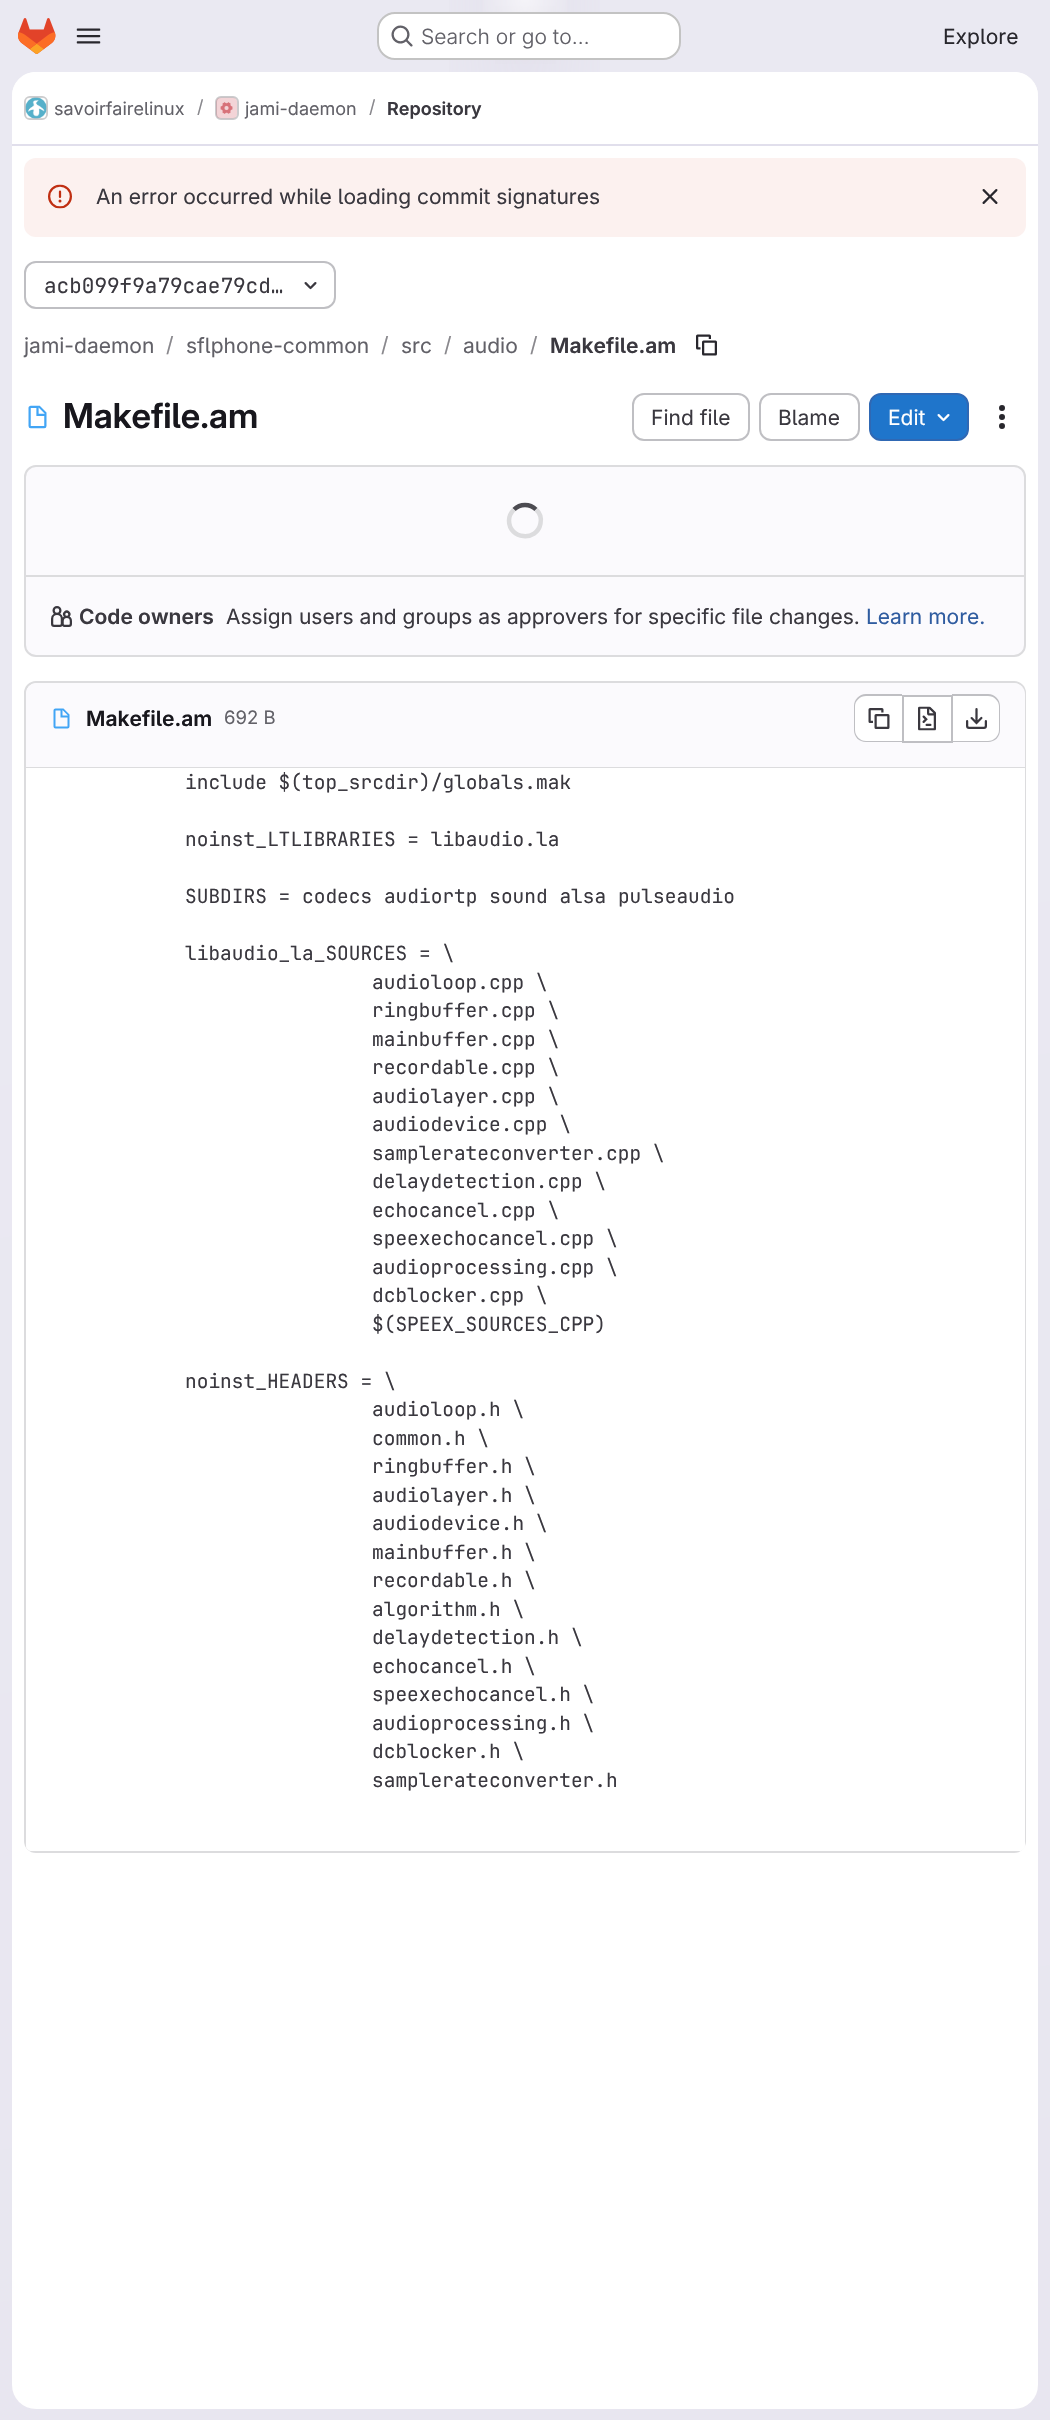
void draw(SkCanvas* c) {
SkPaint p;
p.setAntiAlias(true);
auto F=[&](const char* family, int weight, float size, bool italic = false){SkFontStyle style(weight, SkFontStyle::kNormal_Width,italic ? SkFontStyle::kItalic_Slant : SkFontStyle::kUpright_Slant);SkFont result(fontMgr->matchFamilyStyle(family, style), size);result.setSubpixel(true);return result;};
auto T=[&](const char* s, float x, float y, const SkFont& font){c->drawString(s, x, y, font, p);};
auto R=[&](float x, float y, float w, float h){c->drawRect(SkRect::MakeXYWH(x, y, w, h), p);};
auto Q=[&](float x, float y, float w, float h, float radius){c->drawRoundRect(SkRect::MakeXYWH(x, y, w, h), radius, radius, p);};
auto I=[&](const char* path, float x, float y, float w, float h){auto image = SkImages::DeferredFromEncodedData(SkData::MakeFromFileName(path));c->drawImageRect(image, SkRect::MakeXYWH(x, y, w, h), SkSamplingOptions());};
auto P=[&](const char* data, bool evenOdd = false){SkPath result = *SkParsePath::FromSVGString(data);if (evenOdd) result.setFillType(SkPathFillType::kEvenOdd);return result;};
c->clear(0xffffffff);
{
const SkColor colors[] = {0xffe8e6f0,0xffeae9f2};
const float stops[] = {0,.7};
const SkPoint ends[] = {{748,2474}, {302,-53}};
p.setShader(SkGradientShader::MakeLinear(ends, colors, stops, 2, SkTileMode::kClamp));
p.setAlpha(255);
}
R(0,0,1050,2420);
{
const SkColor colors[] = {0xffe4e2ed,0x00e4e2ed};
const float stops[] = {0,.2};
SkMatrix m = SkMatrix::Translate(525,0).preScale(525,2421);
p.setShader(SkGradientShader::MakeRadial({0, 0}, 1, colors, stops, 2, SkTileMode::kClamp, 0, &m));
p.setAlpha(255);
}
R(449,0,151,72);
{
const SkColor colors[] = {0xffe4e2ec,0x00e4e2ec};
const float stops[] = {0,.14};
SkMatrix m = SkMatrix::Translate(525,0).preScale(525,2421);
p.setShader(SkGradientShader::MakeRadial({0, 0}, 1, colors, stops, 2, SkTileMode::kClamp, 0, &m));
p.setAlpha(255);
}
R(495,6,61,58);
{
const SkColor colors[] = {0x99ffffff,0x00ffffff};
const float stops[] = {0,.02};
p.setShader(SkGradientShader::MakeRadial({525,0}, 2477, colors, stops, 2, SkTileMode::kClamp));
p.setAlpha(255);
}
R(483,0,84,12);
I("1.png",18,18,38,36);
I("2.png",76,28,25,16);
p.setShader(nullptr);
p.setColor(0xffffffff);
Q(377,12,304,48,18);
p.setStroke(true);
p.setStrokeWidth(2);
p.setColor(0x3d050506);
c->drawRoundRect(SkRect::MakeXYWH(378,13,302,46),17,17,p);
I("3.png",391,25,22,22);
auto f1 = F("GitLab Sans",300,21);
p.setStroke(false);
p.setColor(0xff626168);
T("Search or go to…",421,44,f1);
auto f2 = F("GitLab Sans",400,21);
p.setColor(0xff28272d);
T("Explore",943,44,f2);
p.setColor(0xffffffff);
Q(12,72,1026,2337,24);
c->drawPath(P("M36 72h978c13.5 0 24 10.5 24 24v50h-1026v-50c0-13.5 10.5-24 24-24z"),p);
p.setColor(0xffe1dfec);
R(12,144,1026,2);
p.setStroke(true);
p.setColor(0xffdcdcde);
c->drawRoundRect(SkRect::MakeXYWH(25,97,22,22),5,5,p);
I("4.png",25,97,22,22);
p.setColor(0x14050506);
c->drawRoundRect(SkRect::MakeXYWH(25,97,22,22),5,5,p);
auto f3 = F("GitLab Sans",400,18);
p.setStroke(false);
p.setColor(0xff626168);
T("savoirfairelinux",54,115,f3);
p.setColor(0xff89888d);
T("/",197,113,f3);
p.setStroke(true);
p.setColor(0xffdcdcde);
c->drawRoundRect(SkRect::MakeXYWH(216,97,22,22),5,5,p);
I("5.png",216,97,21,22);
p.setColor(0x14050506);
c->drawRoundRect(SkRect::MakeXYWH(216,97,22,22),5,5,p);
p.setStroke(false);
p.setColor(0xff626168);
T("jami-daemon",245,115,f3);
p.setColor(0xff89888d);
T("/",369,113,f3);
auto f4 = F("GitLab Sans",600,18);
p.setColor(0xff3a383f);
T("Repository",387,115,f4);
p.setColor(0xfffcf1ef);
Q(24,158,1002,79,12);
I("6.png",48,184,24,25);
p.setColor(0xff3a383f);
T("An error occurred while loading commit signatures",96,204,f2);
I("7.png",982,189,16,15);
p.setStroke(true);
p.setColor(0xffbfbfc3);
c->drawRoundRect(SkRect::MakeXYWH(25,262,310,46),11,11,p);
auto f5 = F("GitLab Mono",400,21);
p.setStroke(false);
p.setColor(0xff3a383f);
T("acb099f9a79cae79cd…",44,293,f5);
I("8.png",304,282,13,8);
p.setColor(0xff626168);
T("jami-daemon",24,353,f2);
p.setColor(0xff89888d);
T("/",166,352,f2);
p.setColor(0xff626168);
T("sflphone-common",186,353,f2);
p.setColor(0xff89888d);
T("/",381,352,f2);
p.setColor(0xff626168);
T("src",401,353,f2);
p.setColor(0xff89888d);
T("/",444,352,f2);
p.setColor(0xff626168);
T("audio",463,353,f2);
p.setColor(0xff89888d);
T("/",530,352,f2);
auto f6 = F("GitLab Sans",600,21);
p.setColor(0xff3a383f);
T("Makefile.am",550,353,f6);
I("9.png",696,334,21,22);
I("10.png",28,405,19,24);
auto f7 = F("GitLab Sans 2",600,34.5);
p.setColor(0xff18171d);
T("Makefile.am",63,428,f7);
p.setStroke(true);
p.setColor(0xffbfbfc3);
c->drawRoundRect(SkRect::MakeXYWH(633,394,116,46),11,11,p);
p.setStroke(false);
p.setColor(0xff3a383f);
T("Find file",651,425,f2);
p.setStroke(true);
p.setColor(0xffbfbfc3);
c->drawRoundRect(SkRect::MakeXYWH(760,394,99,46),11,11,p);
p.setStroke(false);
p.setColor(0xff3a383f);
T("Blame",778,425,f2);
p.setColor(0xff1f75cb);
c->drawRoundRect(SkRect::MakeXYWH(870,394,98,46),11,11,p);
p.setStroke(true);
p.setColor(0xff2f68b4);
c->drawRoundRect(SkRect::MakeXYWH(870,394,98,46),11,11,p);
p.setStroke(false);
p.setColor(0xffffffff);
T("Edit",888,425,f2);
I("11.png",937,414,13,8);
I("12.png",999,405,6,24);
p.setColor(0xfffbfafd);
c->drawRoundRect(SkRect::MakeXYWH(25,466,1000,190),11,11,p);
p.setStroke(true);
p.setColor(0xffdcdcde);
c->drawRoundRect(SkRect::MakeXYWH(25,466,1000,190),11,11,p);
p.setStrokeWidth(4.5);
p.setColor(0xff4c4b51);
c->drawPath(P("M514 509.5c6-6 16-6 22 0"),p);
p.setColor(0xffdcdcde);
c->drawPath(P("M536 509.5c4 3.5 5.5 9 4.5 14c-3.5 18.5-31.5 16-31.5-3c0-4 2-8 5-11"),p);
p.setStroke(false);
R(26,575,999,2);
I("13.png",51,606,21,21);
p.setColor(0xff3a383f);
T("Code owners",79,624,f6);
T("Assign users and groups as approvers for specific file changes.",226,624,f2);
p.setColor(0xff2f5ca0);
T("Learn more.",866,624,f2);
p.setStroke(true);
p.setStrokeWidth(2);
p.setColor(0xffdcdcde);
c->drawRoundRect(SkRect::MakeXYWH(25,682,1000,1170),11,11,p);
p.setStroke(false);
p.setColor(0xfffbfafd);
c->drawPath(P("M37 683h977c6 0 11 5 11 11v74h-999v-74c0-6 5-11 11-11z"),p);
p.setColor(0xffdcdcde);
R(26,767,999,1);
I("14.png",53,708,17,21);
p.setColor(0xff18171d);
T("Makefile.am",86,726,f6);
auto f8 = F("GitLab Sans",400,18.5);
p.setColor(0xff626168);
T("692 B",224,724,f8);
p.setColor(0xffffffff);
c->drawPath(P("M866 696h36v45h-36c-6 0-11-5-11-11v-23c0-6 5-11 11-11z"),p);
p.setColor(0xffbfbfc3);
c->drawPath(P("M866 694h36v48h-36c-7 0-12-5-12-12v-24c0-6 5-12 12-12zm0 2h36v45h-36c-6 0-11-5-11-11v-24c0-5 5-10 11-10z",true),p);
I("15.png",868,708,22,21);
p.setColor(0xffffffff);
R(904,697,47,44);
p.setColor(0xffbfbfc3);
R(903,695,48,2);
R(903,741,48,2);
R(902,695,2,48);
I("16.png",918,706,18,25);
p.setColor(0xffffffff);
c->drawPath(P("M953 696h35c6 0 11 5 11 11v23c0 6-5 11-11 11h-35z"),p);
p.setColor(0xffbfbfc3);
c->drawPath(P("M952 694h36c7 0 12 6 12 12v24c0 7-5 12-12 12h-36zm0 2h36c6 0 11 5 11 10v24c0 6-5 11-11 11h-36z",true),p);
R(951,695,2,48);
I("17.png",966,708,21,21);
p.setColor(0xffffffff);
c->drawPath(P("M26 768h999v1077c0 3.5-2.5 6-6 6h-987c-3.5 0-6-2.5-6-6z"),p);
c->drawPath(P("M26 768h144v1083h-138c-3.5 0-6-2.5-6-6z"),p);
c->drawPath(P("M182 768h843v1077c0 3.5-2.5 6-6 6h-837z"),p);
auto f9 = F("GitLab Mono",400,19.5);
p.setColor(0xff3a383f);
T("include $(top_srcdir)/globals.mak",185,789,f9);
T("noinst_LTLIBRARIES = libaudio.la",185,846,f9);
T("SUBDIRS = codecs audiortp sound alsa pulseaudio",185,903,f9);
T("libaudio_la_SOURCES = \\",185,960,f9);
T("audioloop.cpp \\",372,989,f9);
T("ringbuffer.cpp \\",372,1017,f9);
T("mainbuffer.cpp \\",372,1046,f9);
T("recordable.cpp \\",372,1074,f9);
T("audiolayer.cpp \\",372,1103,f9);
T("audiodevice.cpp \\",372,1131,f9);
T("samplerateconverter.cpp \\",372,1160,f9);
T("delaydetection.cpp \\",372,1188,f9);
T("echocancel.cpp \\",372,1217,f9);
T("speexechocancel.cpp \\",372,1245,f9);
T("audioprocessing.cpp \\",372,1274,f9);
T("dcblocker.cpp \\",372,1302,f9);
T("$(SPEEX_SOURCES_CPP)",372,1331,f9);
T("noinst_HEADERS = \\",185,1388,f9);
T("audioloop.h \\",372,1416,f9);
T("common.h \\",372,1445,f9);
T("ringbuffer.h \\",372,1473,f9);
T("audiolayer.h \\",372,1502,f9);
T("audiodevice.h \\",372,1530,f9);
T("mainbuffer.h \\",372,1559,f9);
T("recordable.h \\",372,1587,f9);
T("algorithm.h \\",372,1616,f9);
T("delaydetection.h \\",372,1644,f9);
T("echocancel.h \\",372,1673,f9);
T("speexechocancel.h \\",372,1701,f9);
T("audioprocessing.h \\",372,1730,f9);
T("dcblocker.h \\",372,1758,f9);
T("samplerateconverter.h",372,1787,f9);
}
